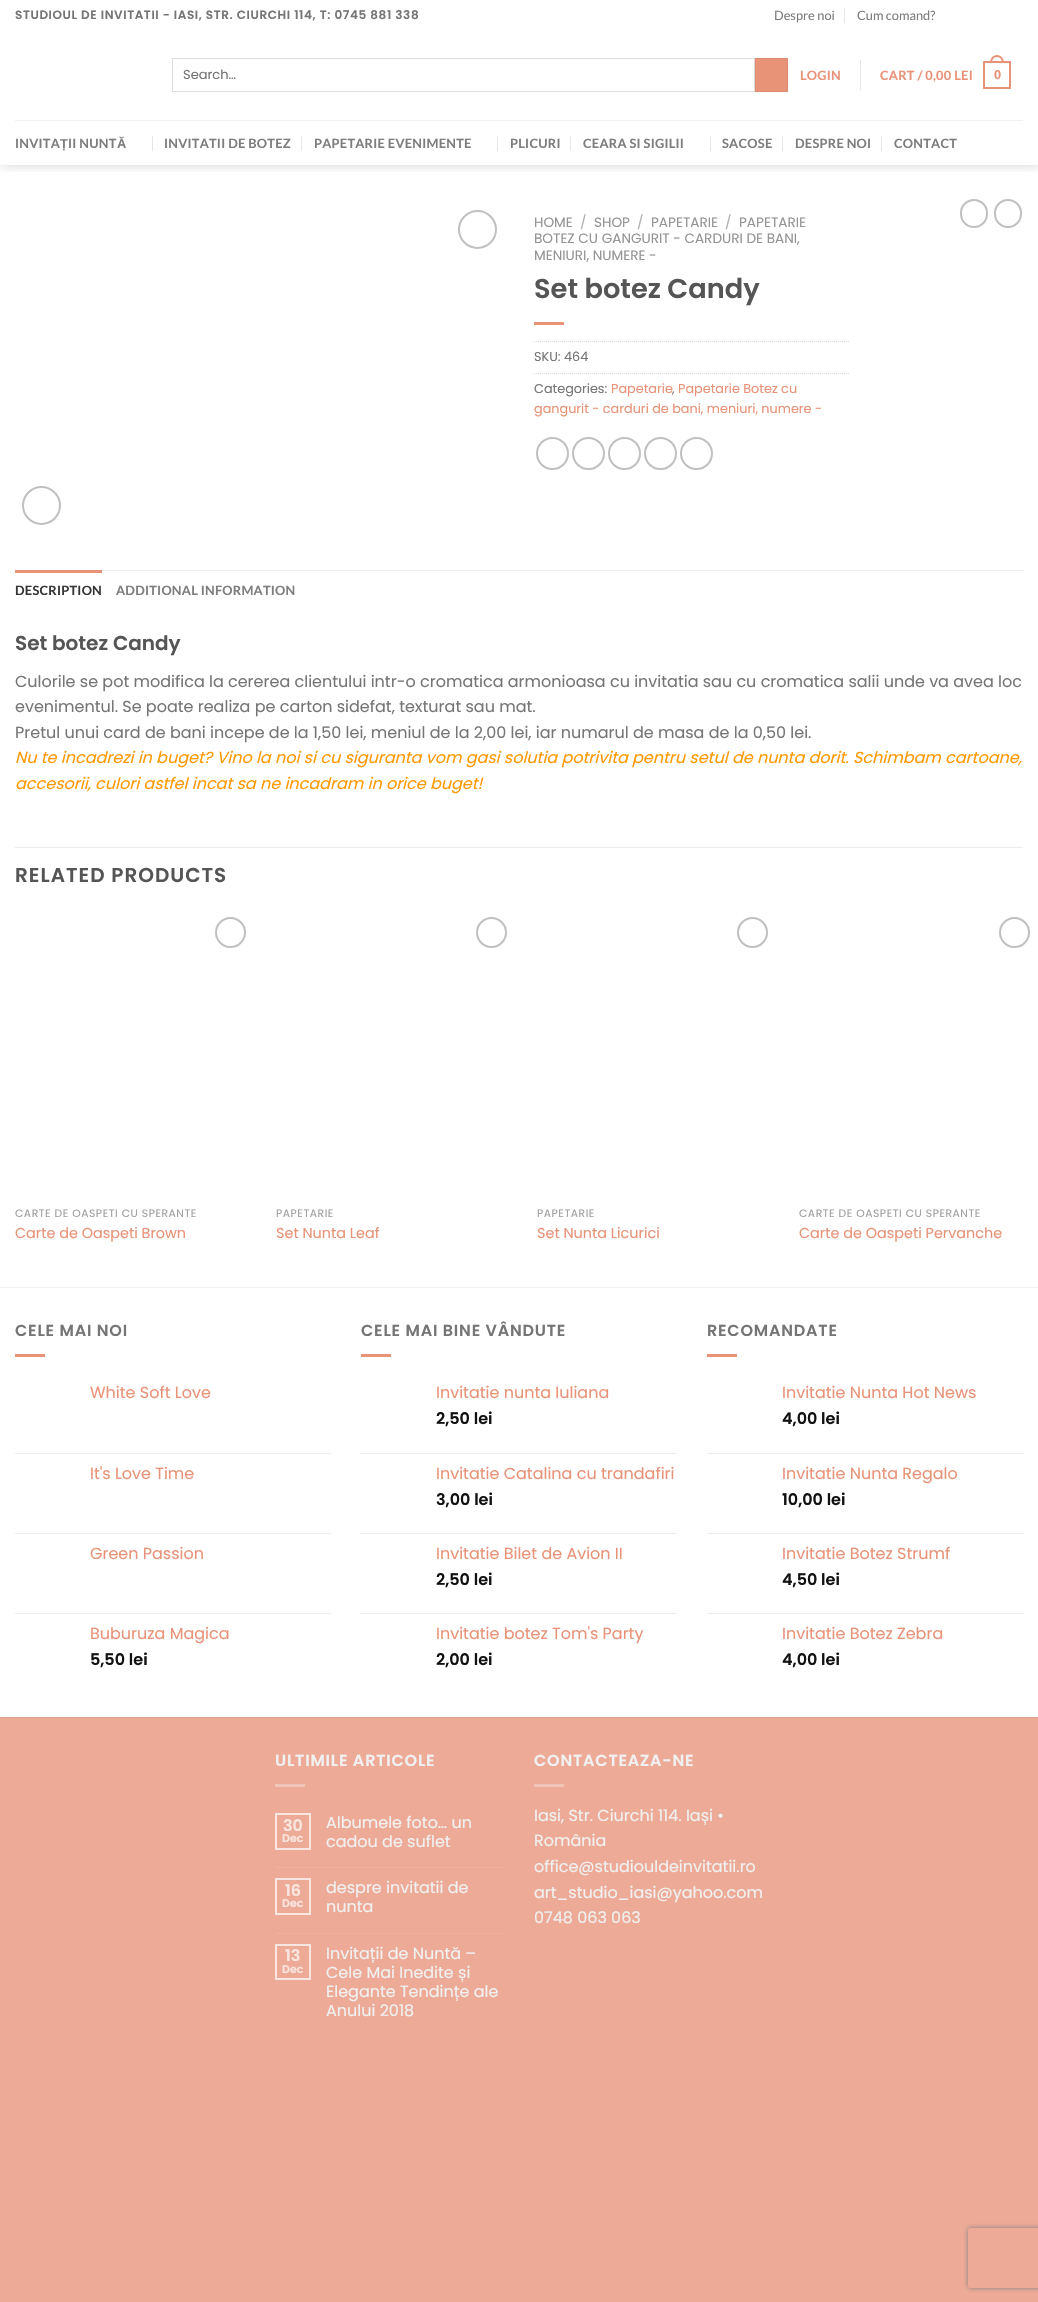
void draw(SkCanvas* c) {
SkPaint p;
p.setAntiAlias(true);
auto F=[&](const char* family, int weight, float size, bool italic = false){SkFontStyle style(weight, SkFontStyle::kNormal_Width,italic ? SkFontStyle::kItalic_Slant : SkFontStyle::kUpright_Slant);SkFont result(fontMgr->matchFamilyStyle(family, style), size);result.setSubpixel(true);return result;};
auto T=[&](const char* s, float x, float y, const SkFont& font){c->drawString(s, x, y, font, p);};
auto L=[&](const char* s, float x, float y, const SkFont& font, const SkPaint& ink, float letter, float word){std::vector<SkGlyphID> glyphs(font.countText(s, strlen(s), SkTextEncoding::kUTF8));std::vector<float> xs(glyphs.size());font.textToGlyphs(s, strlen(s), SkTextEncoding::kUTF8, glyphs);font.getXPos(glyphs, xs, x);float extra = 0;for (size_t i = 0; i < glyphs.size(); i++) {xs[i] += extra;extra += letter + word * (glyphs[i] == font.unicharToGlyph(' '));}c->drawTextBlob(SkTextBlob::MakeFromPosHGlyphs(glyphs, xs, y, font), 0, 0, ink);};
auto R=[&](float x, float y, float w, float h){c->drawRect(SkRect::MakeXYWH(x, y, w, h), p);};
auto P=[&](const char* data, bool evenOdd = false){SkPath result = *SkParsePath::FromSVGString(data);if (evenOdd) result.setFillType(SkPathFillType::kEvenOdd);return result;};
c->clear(0xffffffff);
c->save();
c->clipRect(SkRect::MakeXYWH(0,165,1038,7));
p.setColor(0x26000000);
p.setMaskFilter(SkMaskFilter::MakeBlur(kNormal_SkBlurStyle, 5));
c->drawRect(SkRect::MakeXYWH(1,1,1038,165),p);
p.setMaskFilter(nullptr);
c->restore();
auto f1 = F("Poppins",600,12);
p.setColor(0xff757575);
L("STUDIOUL DE INVITATII - IASI, STR. CIURCHI 114, T: 0745 881 338",15,19,f1,p,.6,0);
auto f2 = F("Lato",400,12.8);
p.setColor(0xff7d7d7d);
T("Despre noi",774,20,f2);
p.setColor(0xffe6e6e6);
R(844,8,1,15);
p.setColor(0xff7d7d7d);
T("Cum comand?",857,20,f2);
p.setStroke(true);
p.setStrokeWidth(1);
p.setColor(0xffdddddd);
c->drawRect(SkRect::MakeXYWH(172.5,58.5,582,33),p);
auto f3 = F("Poppins",400,13);
p.setStroke(false);
p.setColor(0xff757575);
T("Search…",183,79,f3);
p.setColor(0xffe89378);
c->drawRect(SkRect::MakeXYWH(755.5,58.5,32,33),p);
p.setStroke(true);
p.setColor(0xffdc8c72);
c->drawRect(SkRect::MakeXYWH(755.5,58.5,32,33),p);
auto f4 = F("Lato",700,12.8);
p.setStroke(false);
p.setColor(0xffe89378);
L("LOGIN",800,80,f4,p,.25,0);
p.setColor(0xffe6e6e6);
R(860,60,1,30);
p.setColor(0xffe89378);
L("CART / 0,00 LEI",880,80,f4,p,.25,0);
p.setStroke(true);
p.setStrokeWidth(2);
c->drawRect(SkRect::MakeXYWH(984,62,26,26),p);
p.setStroke(false);
c->drawPath(P("M997 55c4.5 0 7 4 7 8h-14c0-4 2.5-8 7-8zm0 2c3.5 0 5 3 5 6h-10c0-3 1.5-6 5-6z",true),p);
auto f5 = F("Liberation Sans",700,12.8);
L("0",994,79,f5,p,.25,0);
p.setColor(0xfff1f1f1);
R(15,120,1008,1);
p.setColor(0xff7d7d7d);
L("INVITA",15,148,f4,p,.25,0);
L("Ț",60,148,f5,p,.25,0);
L("II NUNT",68,148,f4,p,.25,0);
L("Ă",117,148,f5,p,.25,0);
p.setColor(0xffe6e6e6);
R(152,136,1,15);
p.setColor(0xff7d7d7d);
L("INVITATII DE BOTEZ",164,148,f4,p,.25,0);
p.setColor(0xffe6e6e6);
R(301,136,1,15);
p.setColor(0xff7d7d7d);
L("PAPETARIE EVENIMENTE",314,148,f4,p,.25,0);
p.setColor(0xffe6e6e6);
R(497,136,1,15);
p.setColor(0xff7d7d7d);
L("PLICURI",510,148,f4,p,.25,0);
p.setColor(0xffe6e6e6);
R(570,136,1,15);
p.setColor(0xff7d7d7d);
L("CEARA SI SIGILII",583,148,f4,p,.25,0);
p.setColor(0xffe6e6e6);
R(710,136,1,15);
p.setColor(0xff7d7d7d);
L("SACOSE",722,148,f4,p,.25,0);
p.setColor(0xffe6e6e6);
R(782,136,1,15);
p.setColor(0xff7d7d7d);
L("DESPRE NOI",795,148,f4,p,.25,0);
p.setColor(0xffe6e6e6);
R(881,136,1,15);
p.setColor(0xff7d7d7d);
L("CONTACT",894,148,f4,p,.25,0);
p.setStroke(true);
p.setColor(0xffc0c0c0);
c->drawCircle(477.5,229.5,18.5,p);
c->drawCircle(41.5,505.5,18.5,p);
auto f6 = F("Poppins",400,13.6);
p.setStroke(false);
p.setColor(0xff949494);
T("HOME",534,227,f6);
p.setColor(0xffb2b2b2);
T("/",580,227,f6);
p.setColor(0xff949494);
T("SHOP",594,227,f6);
p.setColor(0xffb2b2b2);
T("/",637,227,f6);
p.setColor(0xff949494);
T("PAPETARIE",651,227,f6);
p.setColor(0xffb2b2b2);
T("/",725,227,f6);
p.setColor(0xff949494);
T("PAPETARIE",739,227,f6);
T("BOTEZ CU GANGURIT - CARDURI DE BANI,",534,243,f6);
T("MENIURI, NUMERE -",534,260,f6);
auto f7 = F("Poppins",600,27.25);
p.setColor(0xff555555);
T("Set botez Candy",534,298,f7);
p.setColor(0xffe89378);
R(534,322,30,3);
p.setStroke(true);
p.setStrokeWidth(1);
p.setColor(0xffdddddd);
p.setPathEffect(SkDashPathEffect::Make({{1,1}}, 0));
c->drawPath(P("M534 341.5h316"),p);
p.setPathEffect(nullptr);
auto f8 = F("Poppins",400,12.8);
p.setStroke(false);
p.setColor(0xff757575);
T("SKU: 464",534,361,f8);
p.setStroke(true);
p.setColor(0xffdddddd);
p.setPathEffect(SkDashPathEffect::Make({{1,1}}, 0));
c->drawPath(P("M534 373.5h316"),p);
p.setPathEffect(nullptr);
p.setStroke(false);
p.setColor(0xff757575);
T("Categories:",534,393,f8);
p.setColor(0xffe89378);
T("Papetarie",611,393,f8);
p.setColor(0xff757575);
T(",",672,393,f8);
p.setColor(0xffe89378);
T("Papetarie Botez cu",678,393,f8);
T("gangurit - carduri de bani, meniuri, numere -",534,413,f8);
p.setStroke(true);
p.setStrokeWidth(2);
p.setColor(0xffc0c0c0);
c->drawCircle(552.5,453.5,15.5,p);
c->drawCircle(588.5,453.5,15.5,p);
c->drawCircle(624.5,453.5,15.5,p);
c->drawCircle(660.5,453.5,15.5,p);
c->drawCircle(696.5,453.5,15.5,p);
c->drawRoundRect(SkRect::MakeXYWH(961,200,26,27),13,13,p);
c->drawRoundRect(SkRect::MakeXYWH(995,200,26,27),13,13,p);
p.setStroke(false);
p.setColor(0xffececec);
R(102,570,921,1);
p.setColor(0xffe89378);
R(15,570,87,3);
p.setColor(0xff353535);
L("DESCRIPTION",15,595,f4,p,.25,0);
p.setColor(0xff7d7d7d);
L("ADDITIONAL INFORMATION",116,595,f4,p,.25,0);
auto f9 = F("Poppins",600,20);
p.setColor(0xff555555);
T("Set botez Candy",15,650,f9);
auto f10 = F("Poppins",400,16);
p.setColor(0xff757575);
T("Culorile se pot modifica la cererea clientului intr-o cromatica armonioasa cu invitatia sau cu cromatica salii unde va avea loc",15,687,f10);
T("evenimentul. Se poate realiza pe carton sidefat, texturat sau mat.",15,712,f10);
T("Pretul unui card de bani incepe de la 1,50 lei, meniul de la 2,00 lei, iar numarul de masa de la 0,50 lei.",15,738,f10);
auto f11 = F("Poppins",400,16,true);
p.setColor(0xffff9900);
T("Nu te incadrezi in buget? Vino la noi si cu siguranta vom gasi solutia potrivita pentru setul de nunta dorit. Schimbam cartoane,",15,763,f11);
T("accesorii, culori astfel incat sa ne incadram in orice buget!",15,789,f11);
p.setColor(0xffececec);
R(15,847,1008,1);
p.setColor(0xff555555);
L("RELATED PRODUCTS",15,882,f9,p,1,0);
p.setStroke(true);
p.setColor(0xffc0c0c0);
c->drawCircle(230.5,932.5,14.5,p);
auto f12 = F("Poppins",400,10.75);
p.setStroke(false);
p.setColor(0xff9e9e9e);
L("CARTE DE OASPETI CU SPERANTE",15,1217,f12,p,.55,0);
auto f13 = F("Poppins",400,14.4);
p.setColor(0xffe89378);
T("Carte de Oaspeti Brown",15,1238,f13);
p.setStroke(true);
p.setColor(0xffc0c0c0);
c->drawCircle(491.5,932.5,14.5,p);
p.setStroke(false);
p.setColor(0xff9e9e9e);
L("PAPETARIE",276,1217,f12,p,.55,0);
p.setColor(0xffe89378);
T("Set Nunta Leaf",276,1238,f13);
p.setStroke(true);
p.setColor(0xffc0c0c0);
c->drawCircle(752.5,932.5,14.5,p);
p.setStroke(false);
p.setColor(0xff9e9e9e);
L("PAPETARIE",537,1217,f12,p,.55,0);
p.setColor(0xffe89378);
T("Set Nunta Licurici",537,1238,f13);
p.setStroke(true);
p.setColor(0xffc0c0c0);
c->drawCircle(1014.5,932.5,14.5,p);
p.setStroke(false);
p.setColor(0xff9e9e9e);
L("CARTE DE OASPETI CU SPERANTE",799,1217,f12,p,.55,0);
p.setColor(0xffe89378);
T("Carte de Oaspeti Pervanche",799,1238,f13);
p.setColor(0xfff2f2f2);
R(0,1287,1038,1);
auto f14 = F("Poppins",600,16);
p.setColor(0xff757575);
L("CELE MAI NOI",15,1336,f14,p,.8,0);
p.setColor(0xffe89378);
R(15,1354,30,3);
T("White Soft Love",90,1398,f10);
p.setColor(0xffececec);
R(15,1453,316,1);
p.setColor(0xffe89378);
T("It's Love Time",90,1479,f10);
p.setColor(0xffececec);
R(15,1533,316,1);
p.setColor(0xffe89378);
T("Green Passion",90,1559,f10);
p.setColor(0xffececec);
R(15,1613,316,1);
p.setColor(0xffe89378);
T("Buburuza Magica",90,1639,f10);
p.setColor(0xff111111);
T("5,50 lei",90,1665,f14);
p.setColor(0xff757575);
L("CELE MAI BINE VÂNDUTE",361,1336,f14,p,.8,0);
p.setColor(0xffe89378);
R(361,1354,30,3);
T("Invitatie nunta Iuliana",436,1398,f10);
p.setColor(0xff111111);
T("2,50 lei",436,1424,f14);
p.setColor(0xffececec);
R(361,1453,316,1);
p.setColor(0xffe89378);
T("Invitatie Catalina cu trandafiri",436,1479,f10);
p.setColor(0xff111111);
T("3,00 lei",436,1505,f14);
p.setColor(0xffececec);
R(361,1533,316,1);
p.setColor(0xffe89378);
T("Invitatie Bilet de Avion II",436,1559,f10);
p.setColor(0xff111111);
T("2,50 lei",436,1585,f14);
p.setColor(0xffececec);
R(361,1613,316,1);
p.setColor(0xffe89378);
T("Invitatie botez Tom's Party",436,1639,f10);
p.setColor(0xff111111);
T("2,00 lei",436,1665,f14);
p.setColor(0xff757575);
L("RECOMANDATE",707,1336,f14,p,.8,0);
p.setColor(0xffe89378);
R(707,1354,30,3);
T("Invitatie Nunta Hot News",782,1398,f10);
p.setColor(0xff111111);
T("4,00 lei",782,1424,f14);
p.setColor(0xffececec);
R(707,1453,316,1);
p.setColor(0xffe89378);
T("Invitatie Nunta Regalo",782,1479,f10);
p.setColor(0xff111111);
T("10,00 lei",782,1505,f14);
p.setColor(0xffececec);
R(707,1533,316,1);
p.setColor(0xffe89378);
T("Invitatie Botez Strumf",782,1559,f10);
p.setColor(0xff111111);
T("4,50 lei",782,1585,f14);
p.setColor(0xffececec);
R(707,1613,316,1);
p.setColor(0xffe89378);
T("Invitatie Botez Zebra",782,1639,f10);
p.setColor(0xff111111);
T("4,00 lei",782,1665,f14);
p.setColor(0xffedab97);
R(0,1718,1038,584);
p.setColor(0xffe1a28f);
R(0,1717,1038,1);
p.setColor(0xfff1f1f1);
L("ULTIMILE ARTICOLE",275,1766,f14,p,.8,0);
p.setColor(0xfff2c4b6);
R(275,1784,30,3);
p.setStroke(true);
p.setColor(0xfffae6e0);
c->drawRect(SkRect::MakeXYWH(276,1814,34,35),p);
p.setStroke(false);
T("30",283,1831,f14);
auto f15 = F("Poppins",600,11);
T("Dec",282,1842,f15);
p.setColor(0xfff1f1f1);
T("Albumele foto… un",326,1828,f10);
T("cadou de suflet",326,1847,f10);
p.setColor(0xffeeb29f);
R(275,1867,229,1);
p.setStroke(true);
p.setColor(0xfffae6e0);
c->drawRect(SkRect::MakeXYWH(276,1879,34,35),p);
p.setStroke(false);
T("16",285,1896,f14);
T("Dec",282,1907,f15);
p.setColor(0xfff1f1f1);
T("despre invitatii de",326,1893,f10);
T("nunta",326,1912,f10);
p.setColor(0xffeeb29f);
R(275,1933,229,1);
p.setStroke(true);
p.setColor(0xfffae6e0);
c->drawRect(SkRect::MakeXYWH(276,1945,34,34),p);
p.setStroke(false);
T("13",285,1961,f14);
T("Dec",282,1973,f15);
p.setColor(0xfff1f1f1);
T("Invitații de Nuntă –",326,1959,f10);
T("Cele Mai Inedite și",326,1978,f10);
T("Elegante Tendințe ale",326,1997,f10);
T("Anului 2018",326,2016,f10);
L("CONTACTEAZA-NE",534,1766,f14,p,.8,0);
p.setColor(0xfff2c4b6);
R(534,1784,30,3);
p.setColor(0xfff1f1f1);
T("Iasi, Str. Ciurchi 114. Iași •",534,1821,f10);
T("România",534,1846,f10);
T("office@studiouldeinvitatii.ro",534,1872,f10);
T("art_studio_iasi@yahoo.com",534,1898,f10);
T("0748 063 063",534,1923,f10);
c->save();
c->clipPath(P("M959 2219h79v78h-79zm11 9h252c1 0 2 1 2 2v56c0 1-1 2-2 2h-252c-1 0-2-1-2-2v-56c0-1 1-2 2-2z",true),true);
p.setColor(0xff808080);
p.setMaskFilter(SkMaskFilter::MakeBlur(kNormal_SkBlurStyle, 2.5));
c->drawRoundRect(SkRect::MakeXYWH(968,2228,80,60),2,2,p);
p.setMaskFilter(nullptr);
c->restore();
}
